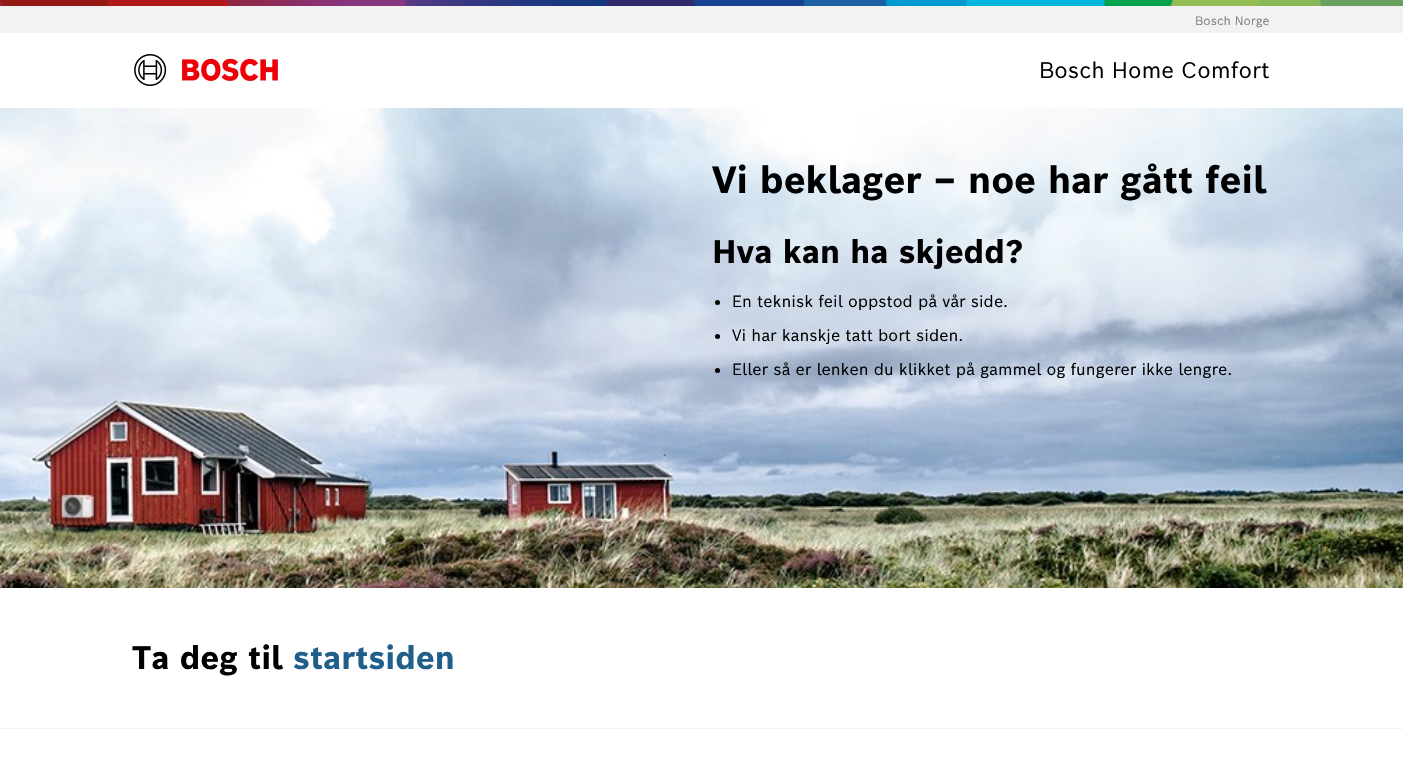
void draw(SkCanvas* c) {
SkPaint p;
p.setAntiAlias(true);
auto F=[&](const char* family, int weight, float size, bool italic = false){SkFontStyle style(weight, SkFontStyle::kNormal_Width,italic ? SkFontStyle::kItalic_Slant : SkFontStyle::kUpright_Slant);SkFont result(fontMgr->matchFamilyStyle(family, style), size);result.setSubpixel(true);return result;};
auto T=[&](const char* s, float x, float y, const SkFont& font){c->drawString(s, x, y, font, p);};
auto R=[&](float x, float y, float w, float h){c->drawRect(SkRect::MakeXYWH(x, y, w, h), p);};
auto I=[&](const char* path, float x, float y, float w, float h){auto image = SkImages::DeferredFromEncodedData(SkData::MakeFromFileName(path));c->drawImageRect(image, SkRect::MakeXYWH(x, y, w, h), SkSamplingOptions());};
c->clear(0xffffffff);
p.setColor(0xfff2f2f2);
R(0,6,1403,27);
I("1.png",0,0,1403,6);
auto f1 = F("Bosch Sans",400,12);
p.setColor(0xff808285);
T("Bosch Norge",1195,25,f1);
I("2.png",134,54,144,32);
auto f2 = F("Bosch Sans",400,22);
p.setColor(0xff000000);
T("Bosch Home Comfort",1039,78,f2);
I("3.png",0,108,1403,480);
auto f3 = F("Bosch Sans",700,37);
T("Vi beklager – noe har gått feil",712,193,f3);
auto f4 = F("Bosch Sans",700,32);
T("Hva kan ha skjedd?",712,263,f4);
c->drawCircle(717.5,302.5,2.5,p);
auto f5 = F("Bosch Sans",400,16);
T("En teknisk feil oppstod på vår side.",732,307,f5);
c->drawCircle(717.5,336.5,2.5,p);
T("Vi har kanskje tatt bort siden.",732,341,f5);
c->drawCircle(717.5,370.5,2.5,p);
T("Eller så er lenken du klikket på gammel og fungerer ikke lengre.",732,375,f5);
T("Ta deg til",132,669,f4);
p.setColor(0xff215f8b);
T("startsiden",293,669,f4);
p.setColor(0xfff2f2f2);
R(0,728,1403,1);
}
